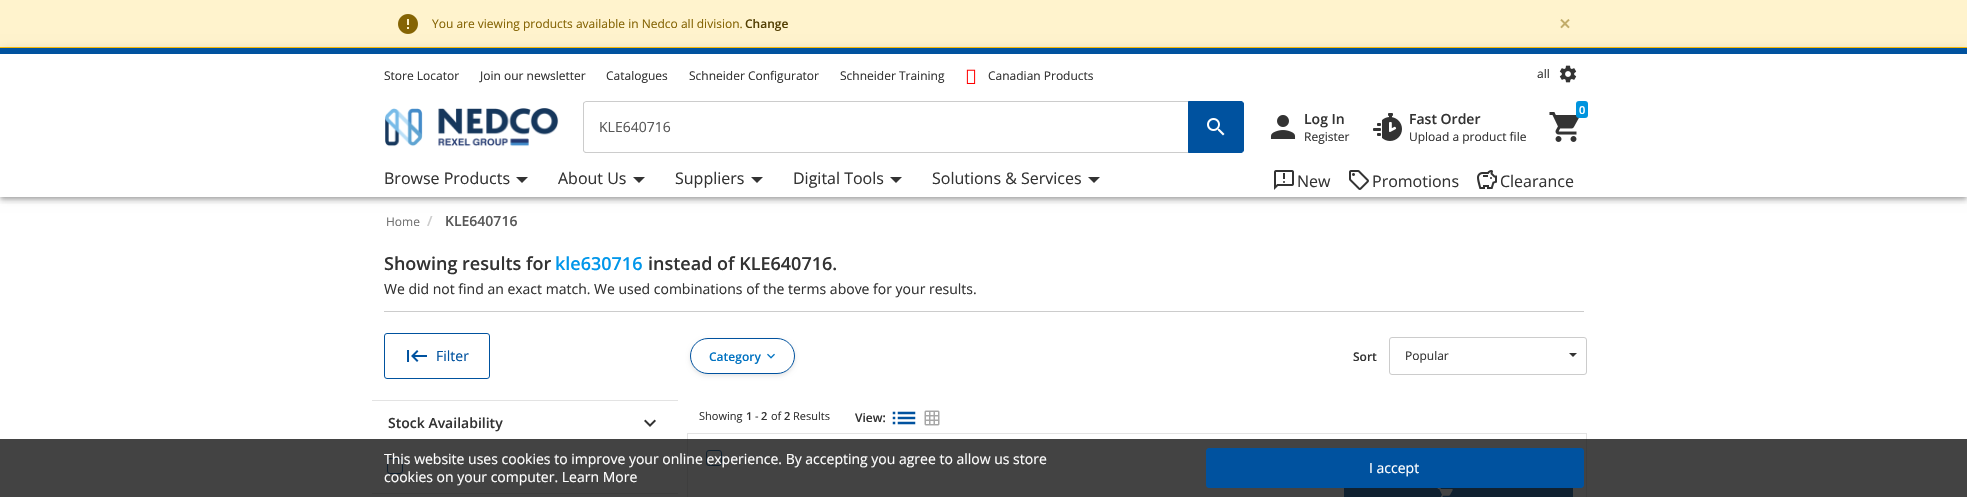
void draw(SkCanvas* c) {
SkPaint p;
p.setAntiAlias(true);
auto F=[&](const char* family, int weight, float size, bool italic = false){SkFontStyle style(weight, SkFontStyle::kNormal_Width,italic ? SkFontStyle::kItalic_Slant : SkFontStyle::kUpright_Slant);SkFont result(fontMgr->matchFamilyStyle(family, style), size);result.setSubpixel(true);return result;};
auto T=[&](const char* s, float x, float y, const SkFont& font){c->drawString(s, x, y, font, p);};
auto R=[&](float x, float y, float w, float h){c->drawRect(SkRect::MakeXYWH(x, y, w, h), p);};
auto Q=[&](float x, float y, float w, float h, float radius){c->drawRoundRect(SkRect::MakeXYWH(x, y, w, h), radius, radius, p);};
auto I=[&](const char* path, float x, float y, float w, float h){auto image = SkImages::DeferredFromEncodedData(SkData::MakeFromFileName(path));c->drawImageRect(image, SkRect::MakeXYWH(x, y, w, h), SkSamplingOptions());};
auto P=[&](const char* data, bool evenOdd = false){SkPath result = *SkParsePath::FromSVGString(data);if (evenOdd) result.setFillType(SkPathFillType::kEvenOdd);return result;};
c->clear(0xffffffff);
p.setColor(0xfffff3cd);
R(0,0,1967,47);
p.setColor(0xffffc107);
R(0,47,1967,1);
I("1.png",398,14,20,20);
auto f1 = F("Open Sans",400,12);
p.setColor(0xff856404);
T("You are viewing products available in Nedco all division.",432,28,f1);
auto f2 = F("Open Sans",600,12);
p.setColor(0xff533f03);
T("Change",745,28,f2);
auto f3 = F("Open Sans",600,21);
p.setColor(0xffc2ac69);
T("×",1559,31,f3);
c->save();
c->clipRect(SkRect::MakeXYWH(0,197,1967,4));
p.setColor(0x33000000);
p.setMaskFilter(SkMaskFilter::MakeBlur(kNormal_SkBlurStyle, 2));
c->drawRect(SkRect::MakeXYWH(1,51,1965,147),p);
p.setMaskFilter(nullptr);
c->restore();
c->save();
c->clipPath(P("M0 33h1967v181h-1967zm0 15h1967v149h-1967z",true),true);
p.setColor(0x1f000000);
p.setMaskFilter(SkMaskFilter::MakeBlur(kNormal_SkBlurStyle, 5));
c->drawRect(SkRect::MakeXYWH(0,49,1967,149),p);
p.setMaskFilter(nullptr);
c->restore();
c->save();
c->clipRect(SkRect::MakeXYWH(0,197,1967,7));
p.setColor(0x24000000);
p.setMaskFilter(SkMaskFilter::MakeBlur(kNormal_SkBlurStyle, 2.5));
c->drawRect(SkRect::MakeXYWH(0,52,1967,149),p);
p.setMaskFilter(nullptr);
c->restore();
p.setColor(0xff00529f);
R(0,48,1967,6);
p.setColor(0xff333333);
T("Store Locator",384,80,f1);
T("Join our newsletter",480,80,f1);
T("Catalogues",606,80,f1);
T("Schneider Configurator",689,80,f1);
T("Schneider Training",840,80,f1);
I("2.png",966,69,10,15);
T("Canadian Products",988,80,f1);
T("all",1537,78,f1);
I("3.png",1559,65,18,18);
I("4.png",385,108,174,39);
p.setColor(0xffcccccc);
c->drawPath(P("M586 101h603v52h-604l-2-2v-48l1-1zm0 1h603v50h-603c-1 0-2-1-2-2v-46c0-1 1-2 2-2z",true),p);
auto f4 = F("Open Sans",400,14);
p.setColor(0xff585858);
T("KLE640716",599,132,f4);
p.setColor(0xff00529f);
c->drawPath(P("M1188.5 101.5h52.5c1.5 0 2.5 1 2.5 2.5v46c0 1.5-1 2.5-2.5 2.5h-52.5z"),p);
p.setStroke(true);
p.setStrokeWidth(1);
c->drawPath(P("M1188.5 101.5h52.5c1.5 0 2.5 1 2.5 2.5v46c0 1.5-1 2.5-2.5 2.5h-52.5z"),p);
I("5.png",1207,118,18,18);
I("6.png",1549,112,30,30);
p.setStroke(false);
p.setColor(0xff0094de);
Q(1576,101,12,17,3);
auto f5 = F("Open Sans",600,11);
p.setColor(0xffffffff);
T("0",1579,114,f5);
I("7.png",1270,115,26,24);
auto f6 = F("Open Sans",600,14);
p.setColor(0xff333333);
T("Log In",1304,124,f6);
T("Register",1304,141,f1);
I("8.png",1373,113,29,28);
T("Fast Order",1409,124,f6);
T("Upload a product file",1409,141,f1);
auto f7 = F("Open Sans",400,16);
T("Browse Products",384,184,f7);
c->drawPath(P("M516 177h12l-6 6z"),p);
T("About Us",558,184,f7);
c->drawPath(P("M633 177h12l-6 6z"),p);
T("Suppliers",675,184,f7);
c->drawPath(P("M751 177h12l-6 6z"),p);
T("Digital Tools",793,184,f7);
c->drawPath(P("M890 177h12l-6 6z"),p);
T("Solutions & Services",932,184,f7);
c->drawPath(P("M1088 177h12l-6 6z"),p);
I("9.png",1274,170,20,20);
T("New",1297,187,f7);
I("10.png",1349,170,20,20);
T("Promotions",1372,187,f7);
I("11.png",1477,170,20,19);
T("Clearance",1500,187,f7);
p.setColor(0xff727272);
T("Home",386,226,f1);
p.setColor(0xffcccccc);
T("/",427,226,f6);
p.setColor(0xff585858);
T("KLE640716",445,226,f6);
p.setColor(0xffcccccc);
R(384,311,1200,1);
auto f8 = F("Open Sans",600,18);
p.setColor(0xff333333);
T("Showing results for",384,270,f8);
p.setColor(0xff0096ea);
T("kle630716",555,270,f8);
p.setColor(0xff333333);
T("instead of KLE640716.",648,270,f8);
T("We did not find an exact match. We used combinations of the terms above for your results.",384,294,f4);
p.setStroke(true);
p.setColor(0xff00529f);
c->drawRoundRect(SkRect::MakeXYWH(384.5,333.5,105,45),2.5,2.5,p);
I("12.png",407,350,20,12);
p.setStroke(false);
T("Filter",436,361,f4);
p.setColor(0x1a000000);
p.setMaskFilter(SkMaskFilter::MakeBlur(kNormal_SkBlurStyle, 2));
c->drawRoundRect(SkRect::MakeXYWH(690,340,105,36),18,18,p);
p.setMaskFilter(nullptr);
p.setColor(0xffffffff);
c->drawRoundRect(SkRect::MakeXYWH(690.5,338.5,104,35),17.5,17.5,p);
p.setStroke(true);
p.setColor(0xff00529f);
c->drawRoundRect(SkRect::MakeXYWH(690.5,338.5,104,35),17.5,17.5,p);
p.setStroke(false);
p.setColor(0xff0072c1);
T("Category",709,361,f2);
I("13.png",767,353,8,6);
p.setColor(0xff333333);
T("Sort",1353,361,f2);
p.setStroke(true);
p.setColor(0xffcccccc);
c->drawRoundRect(SkRect::MakeXYWH(1389.5,337.5,197,37),2.5,2.5,p);
p.setStroke(false);
p.setColor(0xff333333);
T("Popular",1405,360,f1);
c->drawPath(P("M1569 353h8l-4 4z"),p);
p.setColor(0xffe3e3e3);
R(372,400,306,1);
R(372,493,306,1);
p.setColor(0xff333333);
T("Stock Availability",388,428,f6);
I("14.png",644,419,12,8);
p.setStroke(true);
p.setColor(0xff00529f);
c->drawRoundRect(SkRect::MakeXYWH(387.5,458.5,15,15),2.5,2.5,p);
auto f9 = F("Open Sans",400,11);
p.setStroke(false);
p.setColor(0xff333333);
T("Showing",699,420,f9);
T("1",746,420,f5);
T("-",755,420,f9);
T("2",761,420,f5);
T("of",771,420,f9);
T("2",784,420,f5);
T("Results",793,420,f9);
T("View:",855,422,f2);
I("15.png",892,411,24,14);
I("16.png",924,410,16,16);
p.setStroke(true);
p.setColor(0xffe3e3e3);
c->drawRect(SkRect::MakeXYWH(687.5,433.5,899,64),p);
p.setColor(0xff00529f);
c->drawRoundRect(SkRect::MakeXYWH(706.5,450.5,15,15),2.5,2.5,p);
p.setStroke(false);
R(1345,488,227,9);
p.setStroke(true);
c->drawRect(SkRect::MakeXYWH(1344.5,479.5,228,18),p);
I("17.png",1437,488,16,9);
p.setStroke(false);
p.setColor(0xcc141414);
R(0,439,1967,58);
p.setColor(0xffffffff);
T("This website uses cookies to improve your online experience. By accepting you agree to allow us store",384,464,f4);
T("cookies on your computer. Learn More",384,482,f4);
p.setColor(0xff00529f);
c->drawRoundRect(SkRect::MakeXYWH(1206.5,448.5,377,39),2.5,2.5,p);
p.setStroke(true);
c->drawRoundRect(SkRect::MakeXYWH(1206.5,448.5,377,39),2.5,2.5,p);
p.setStroke(false);
p.setColor(0xffffffff);
T("I accept",1369,473,f4);
}
